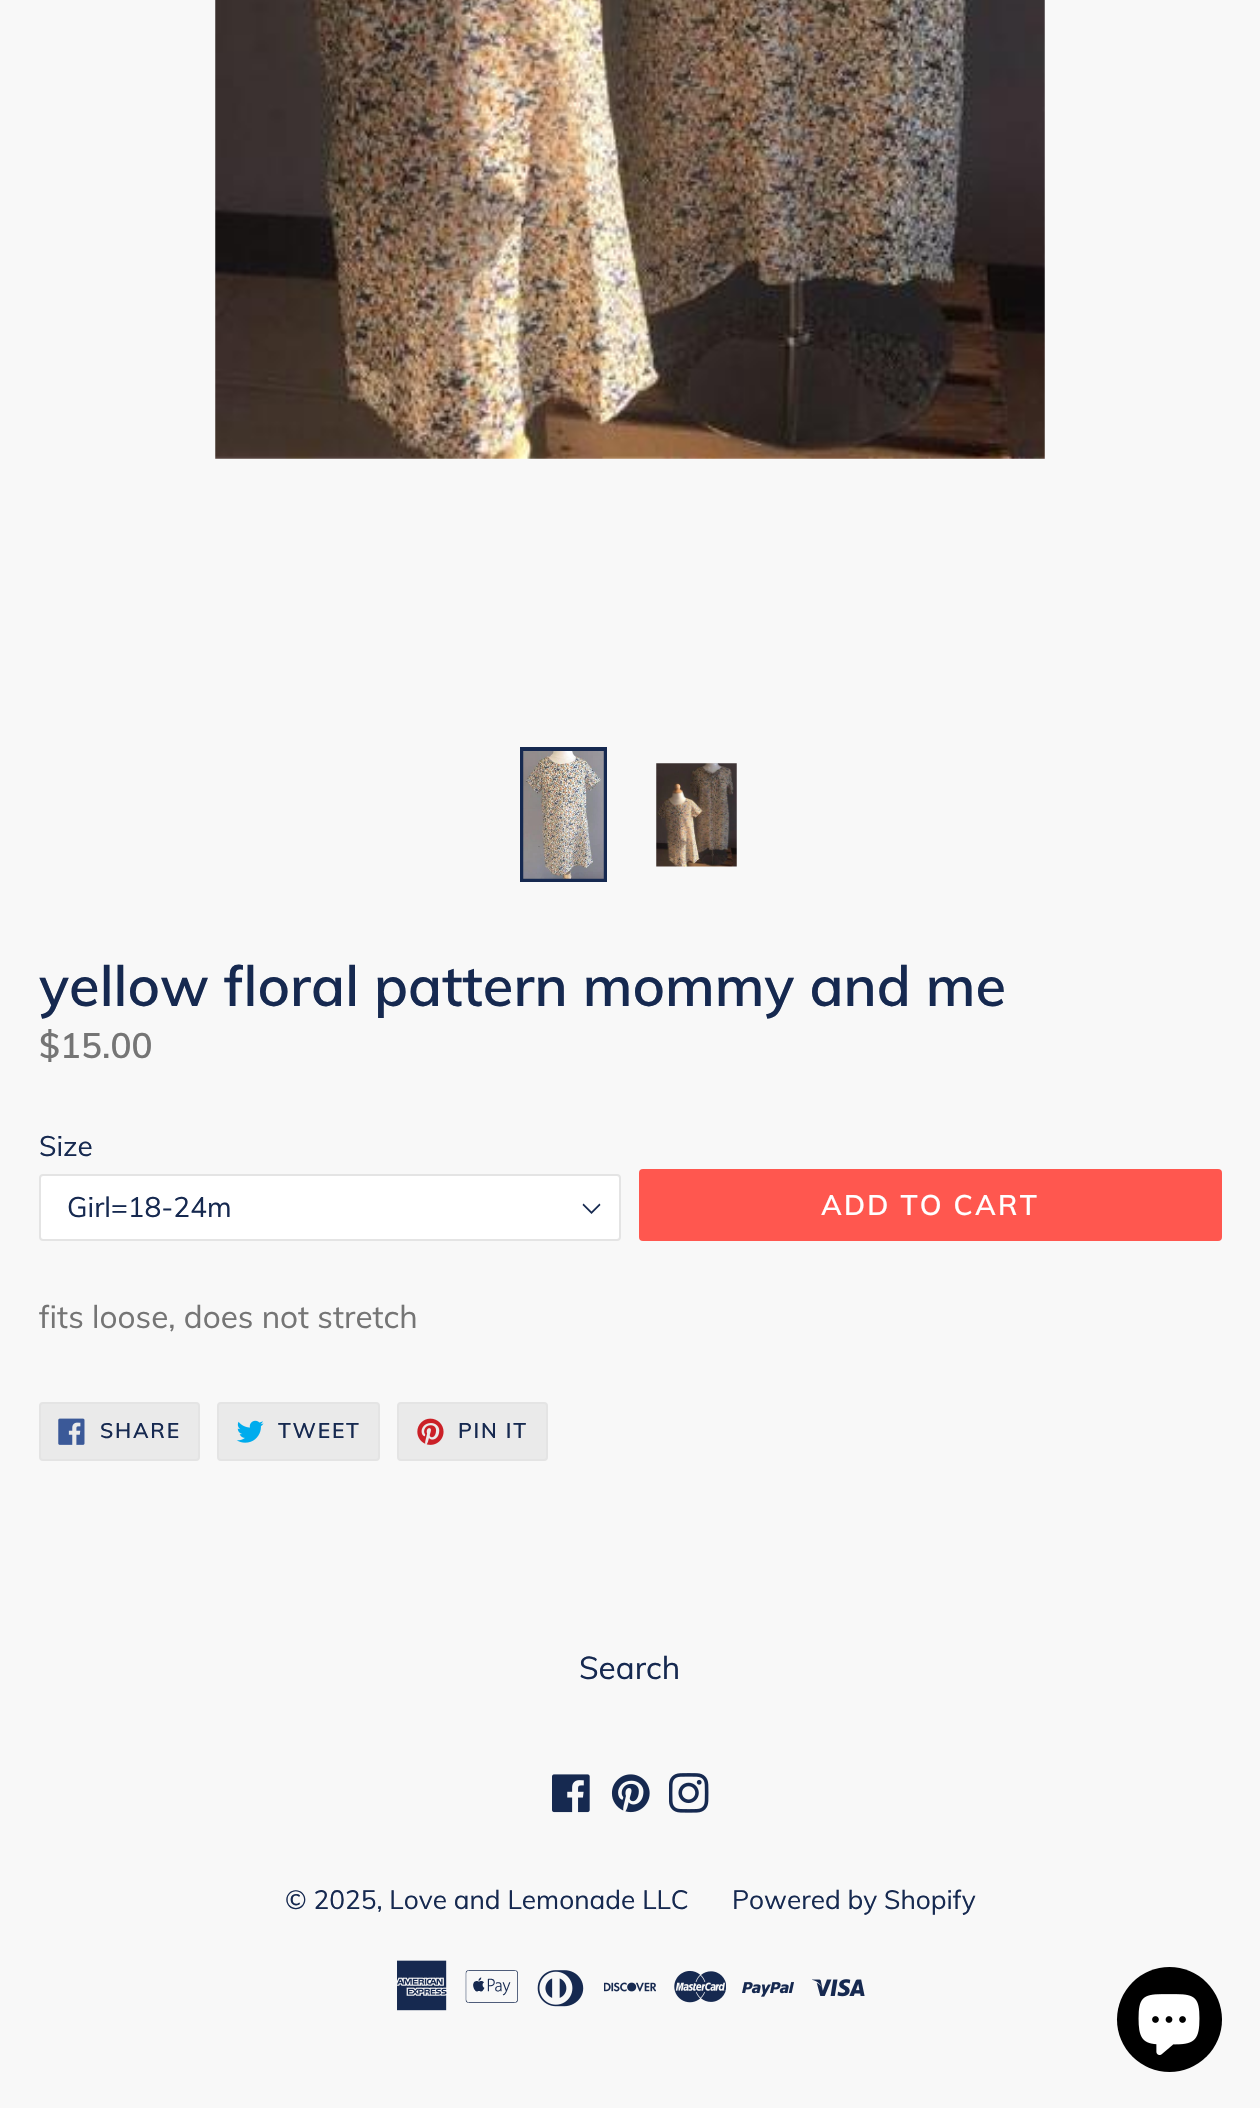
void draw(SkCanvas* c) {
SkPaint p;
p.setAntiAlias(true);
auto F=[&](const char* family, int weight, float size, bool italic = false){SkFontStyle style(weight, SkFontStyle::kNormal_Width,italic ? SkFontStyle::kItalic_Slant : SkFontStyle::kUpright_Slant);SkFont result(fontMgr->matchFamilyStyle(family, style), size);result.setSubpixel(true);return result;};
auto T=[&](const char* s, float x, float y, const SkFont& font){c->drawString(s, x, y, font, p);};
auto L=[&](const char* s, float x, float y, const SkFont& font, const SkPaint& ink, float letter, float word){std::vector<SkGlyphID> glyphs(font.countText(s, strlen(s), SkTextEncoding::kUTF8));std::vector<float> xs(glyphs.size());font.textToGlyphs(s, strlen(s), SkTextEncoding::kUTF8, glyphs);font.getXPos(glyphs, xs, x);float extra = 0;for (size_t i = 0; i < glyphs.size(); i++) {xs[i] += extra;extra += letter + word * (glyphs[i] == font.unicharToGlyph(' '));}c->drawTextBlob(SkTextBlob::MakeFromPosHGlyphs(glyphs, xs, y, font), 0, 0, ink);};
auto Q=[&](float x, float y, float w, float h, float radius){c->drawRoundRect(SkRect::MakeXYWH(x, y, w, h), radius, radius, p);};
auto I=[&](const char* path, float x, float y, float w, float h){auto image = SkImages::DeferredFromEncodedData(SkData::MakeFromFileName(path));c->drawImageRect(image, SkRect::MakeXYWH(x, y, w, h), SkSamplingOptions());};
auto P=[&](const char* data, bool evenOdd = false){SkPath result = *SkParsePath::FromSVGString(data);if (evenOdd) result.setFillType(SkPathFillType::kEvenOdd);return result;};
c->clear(0xfff8f8f8);
I("1.png",215,0,830,459);
p.setStroke(true);
p.setStrokeWidth(4);
p.setColor(0xff162950);
c->drawRect(SkRect::MakeXYWH(522,749,83,131),p);
I("2.png",523,751,81,128);
I("3.png",656,763,81,104);
auto f1 = F("Muli",600,56);
p.setStroke(false);
T("yellow floral pattern mommy and me",39,1006,f1);
auto f2 = F("Muli",600,35);
p.setColor(0xff757575);
T("$15.00",39,1058,f2);
auto f3 = F("Muli",400,28);
p.setColor(0xff162950);
T("Size",39,1156,f3);
p.setColor(0xffffffff);
Q(39,1174,582,67,4);
p.setColor(0xff162950);
c->drawPath(P("M591.5 1214l-9-9l1-1.5l8 8l8-8l1 1.5z"),p);
p.setStroke(true);
p.setStrokeWidth(2);
p.setColor(0xffe4e4e4);
c->drawRoundRect(SkRect::MakeXYWH(40,1175,580,65),3,3,p);
p.setStroke(false);
p.setColor(0xff162950);
T("Girl=18-24m",67,1217,f3);
p.setColor(0xffff574f);
Q(639,1169,583,72,4);
auto f4 = F("Muli",600,28);
p.setColor(0xffffffff);
L("ADD TO CART",821,1215,f4,p,2.25,0);
auto f5 = F("Muli",400,31.5);
p.setColor(0xff757575);
T("fits loose, does not stretch",39,1328,f5);
p.setColor(0xffeaeaea);
c->drawRoundRect(SkRect::MakeXYWH(40,1403,159,57),3,3,p);
p.setStroke(true);
p.setColor(0xffe4e4e4);
c->drawRoundRect(SkRect::MakeXYWH(40,1403,159,57),3,3,p);
I("4.png",58,1418,27,27);
auto f6 = F("Muli",600,21);
p.setStroke(false);
p.setColor(0xff162950);
L("SHARE",100,1438,f6,p,1.75,0);
p.setColor(0xffeaeaea);
c->drawRoundRect(SkRect::MakeXYWH(218,1403,161,57),3,3,p);
p.setStroke(true);
p.setColor(0xffe4e4e4);
c->drawRoundRect(SkRect::MakeXYWH(218,1403,161,57),3,3,p);
I("5.png",236,1420,28,23);
p.setStroke(false);
p.setColor(0xff162950);
L("TWEET",278,1438,f6,p,1.75,0);
p.setColor(0xffeaeaea);
c->drawRoundRect(SkRect::MakeXYWH(398,1403,149,57),3,3,p);
p.setStroke(true);
p.setColor(0xffe4e4e4);
c->drawRoundRect(SkRect::MakeXYWH(398,1403,149,57),3,3,p);
I("6.png",417,1418,27,27);
p.setStroke(false);
p.setColor(0xff162950);
L("PIN IT",458,1438,f6,p,1.75,0);
T("Search",579,1679,f5);
I("7.png",552,1774,38,39);
I("8.png",611,1774,39,39);
I("9.png",669,1773,40,40);
auto f7 = F("Muli",400,26.25);
T("© 2025, Love and Lemonade LLC",285,1909,f7);
T("Powered by Shopify",732,1909,f7);
I("10.png",397,1960,50,51);
I("11.png",465,1970,53,33);
I("12.png",537,1970,47,37);
I("13.png",604,1982,52,10);
I("14.png",674,1970,52,33);
I("15.png",742,1982,52,15);
I("16.png",812,1979,53,18);
p.setColor(0xff000000);
c->drawCircle(1169.5,2019.5,52.5,p);
I("17.png",1138,1994,62,61);
}
